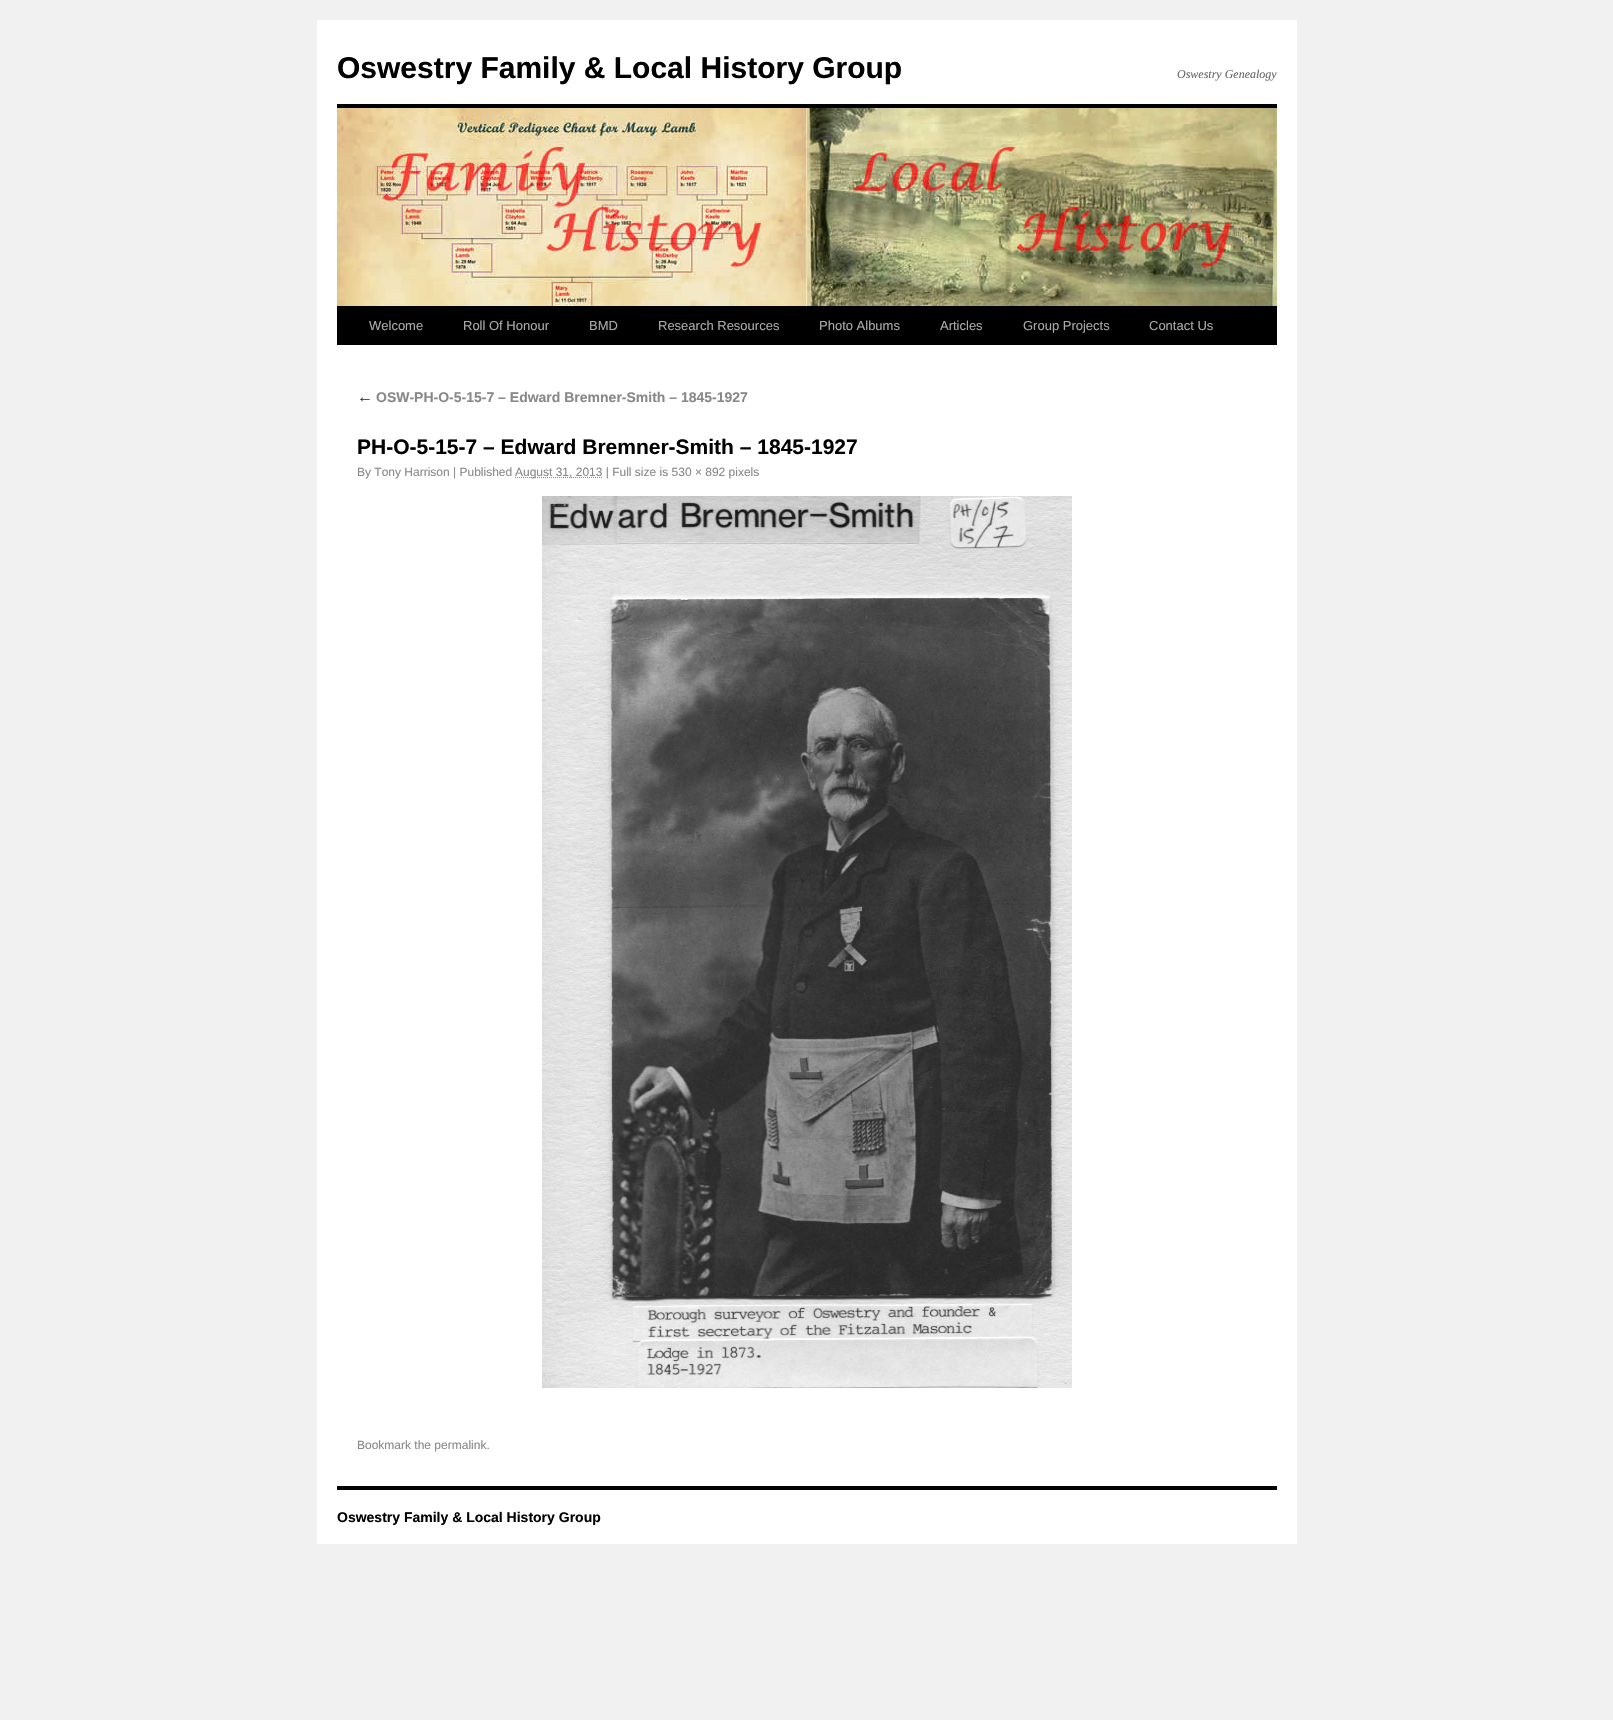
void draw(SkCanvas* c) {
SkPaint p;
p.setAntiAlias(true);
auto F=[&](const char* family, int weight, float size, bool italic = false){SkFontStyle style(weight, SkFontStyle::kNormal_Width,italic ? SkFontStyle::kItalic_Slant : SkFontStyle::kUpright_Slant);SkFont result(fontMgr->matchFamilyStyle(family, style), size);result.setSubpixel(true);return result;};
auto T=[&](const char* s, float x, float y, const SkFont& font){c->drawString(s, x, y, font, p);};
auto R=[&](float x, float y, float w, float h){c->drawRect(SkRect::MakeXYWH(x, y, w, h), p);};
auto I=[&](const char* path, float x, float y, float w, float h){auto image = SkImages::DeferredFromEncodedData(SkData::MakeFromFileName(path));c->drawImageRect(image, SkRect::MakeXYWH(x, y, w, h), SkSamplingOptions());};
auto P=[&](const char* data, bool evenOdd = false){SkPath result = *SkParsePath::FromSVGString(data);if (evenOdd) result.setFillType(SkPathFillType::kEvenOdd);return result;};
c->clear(0xfff1f1f1);
p.setColor(0xffffffff);
R(317,20,980,1524);
auto f1 = F("Liberation Sans",700,30);
p.setColor(0xff000000);
T("Oswestry Family & Local History Group",337,78,f1);
auto f2 = F("Liberation Serif",400,12,true);
p.setColor(0xff666666);
T("Oswestry Genealogy",1177,78,f2);
p.setColor(0xff000000);
R(337,104,940,4);
R(337,306,940,39);
I("1.png",337,108,940,198);
auto f3 = F("Liberation Sans",400,13);
p.setColor(0xffaaaaaa);
T("Welcome",369,330,f3);
T("Roll Of Honour",463,330,f3);
T("BMD",589,330,f3);
T("Research Resources",658,330,f3);
T("Photo Albums",819,330,f3);
T("Articles",940,330,f3);
T("Group Projects",1023,330,f3);
T("Contact Us",1149,330,f3);
auto f4 = F("Liberation Serif",400,16,true);
p.setColor(0xff333333);
T("←",357,402,f4);
auto f5 = F("Liberation Sans",700,14);
p.setColor(0xff888888);
T("OSW-PH-O-5-15-7 – Edward Bremner-Smith – 1845-1927",376,402,f5);
auto f6 = F("Liberation Sans",700,21);
p.setColor(0xff000000);
T("PH-O-5-15-7 – Edward Bremner-Smith – 1845-1927",357,454,f6);
auto f7 = F("Liberation Sans",400,12);
p.setColor(0xff888888);
T("By Tony Harrison | Published",357,476,f7);
p.setStroke(true);
p.setStrokeWidth(1);
p.setPathEffect(SkDashPathEffect::Make({{1,1}}, 0));
c->drawPath(P("M515 477.5h87.5"),p);
p.setPathEffect(nullptr);
p.setStroke(false);
T("August 31, 2013 | Full size is 530 × 892 pixels",515,476,f7);
I("2.png",542,496,530,892);
T("Bookmark the permalink.",357,1449,f7);
p.setColor(0xff000000);
R(337,1486,940,4);
T("Oswestry Family & Local History Group",337,1522,f5);
}
